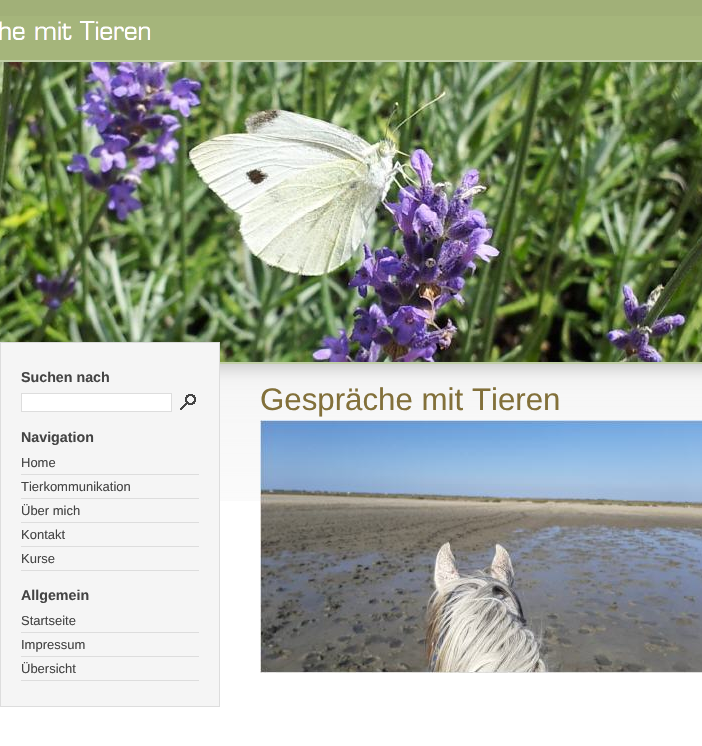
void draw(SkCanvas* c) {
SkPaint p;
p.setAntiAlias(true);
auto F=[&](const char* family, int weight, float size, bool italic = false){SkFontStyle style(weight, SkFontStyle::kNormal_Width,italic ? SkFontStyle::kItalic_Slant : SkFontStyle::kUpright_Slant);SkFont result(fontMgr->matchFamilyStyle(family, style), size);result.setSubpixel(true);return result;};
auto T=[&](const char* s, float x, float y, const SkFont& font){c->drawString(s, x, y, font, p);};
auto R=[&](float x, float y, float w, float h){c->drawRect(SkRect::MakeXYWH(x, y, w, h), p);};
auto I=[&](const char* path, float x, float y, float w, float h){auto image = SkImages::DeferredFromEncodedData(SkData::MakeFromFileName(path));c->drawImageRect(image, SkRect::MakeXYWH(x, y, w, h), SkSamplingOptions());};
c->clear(0xffffffff);
I("1.png",220,364,482,137);
p.setColor(0xffa1b078);
R(0,0,702,16);
I("2.png",0,16,702,44);
I("3.png",0,62,702,300);
p.setColor(0xffc0cea6);
R(0,60,702,2);
R(220,362,482,2);
p.setColor(0xfff5f5f5);
c->drawRect(SkRect::MakeXYWH(.5,342.5,219,364),p);
p.setStroke(true);
p.setStrokeWidth(1);
p.setColor(0xffdddddd);
c->drawRect(SkRect::MakeXYWH(.5,342.5,219,364),p);
auto f1 = F("Liberation Sans",700,14.25);
p.setStroke(false);
p.setColor(0xff444444);
T("Suchen nach",21,382,f1);
p.setColor(0xffffffff);
c->drawRect(SkRect::MakeXYWH(21.5,393.5,150,18),p);
p.setStroke(true);
p.setColor(0xffdddddd);
c->drawRect(SkRect::MakeXYWH(21.5,393.5,150,18),p);
I("4.png",180,394,16,16);
p.setStroke(false);
p.setColor(0xff444444);
T("Navigation",21,442,f1);
p.setColor(0xffdddddd);
R(21,474,178,1);
auto f2 = F("Liberation Sans",400,13);
p.setColor(0xff444444);
T("Home",21,467,f2);
p.setColor(0xffdddddd);
R(21,498,178,1);
p.setColor(0xff444444);
T("Tierkommunikation",21,491,f2);
p.setColor(0xffdddddd);
R(21,522,178,1);
p.setColor(0xff444444);
T("Über mich",21,515,f2);
p.setColor(0xffdddddd);
R(21,546,178,1);
p.setColor(0xff444444);
T("Kontakt",21,539,f2);
p.setColor(0xffdddddd);
R(21,570,178,1);
p.setColor(0xff444444);
T("Kurse",21,563,f2);
T("Allgemein",21,600,f1);
p.setColor(0xffdddddd);
R(21,632,178,1);
p.setColor(0xff444444);
T("Startseite",21,625,f2);
p.setColor(0xffdddddd);
R(21,656,178,1);
p.setColor(0xff444444);
T("Impressum",21,649,f2);
p.setColor(0xffdddddd);
R(21,680,178,1);
p.setColor(0xff444444);
T("Übersicht",21,673,f2);
auto f3 = F("Liberation Sans",400,31.25);
p.setColor(0xff82703a);
T("Gespräche mit Tieren",260,410,f3);
I("5.png",260,420,442,253);
}
